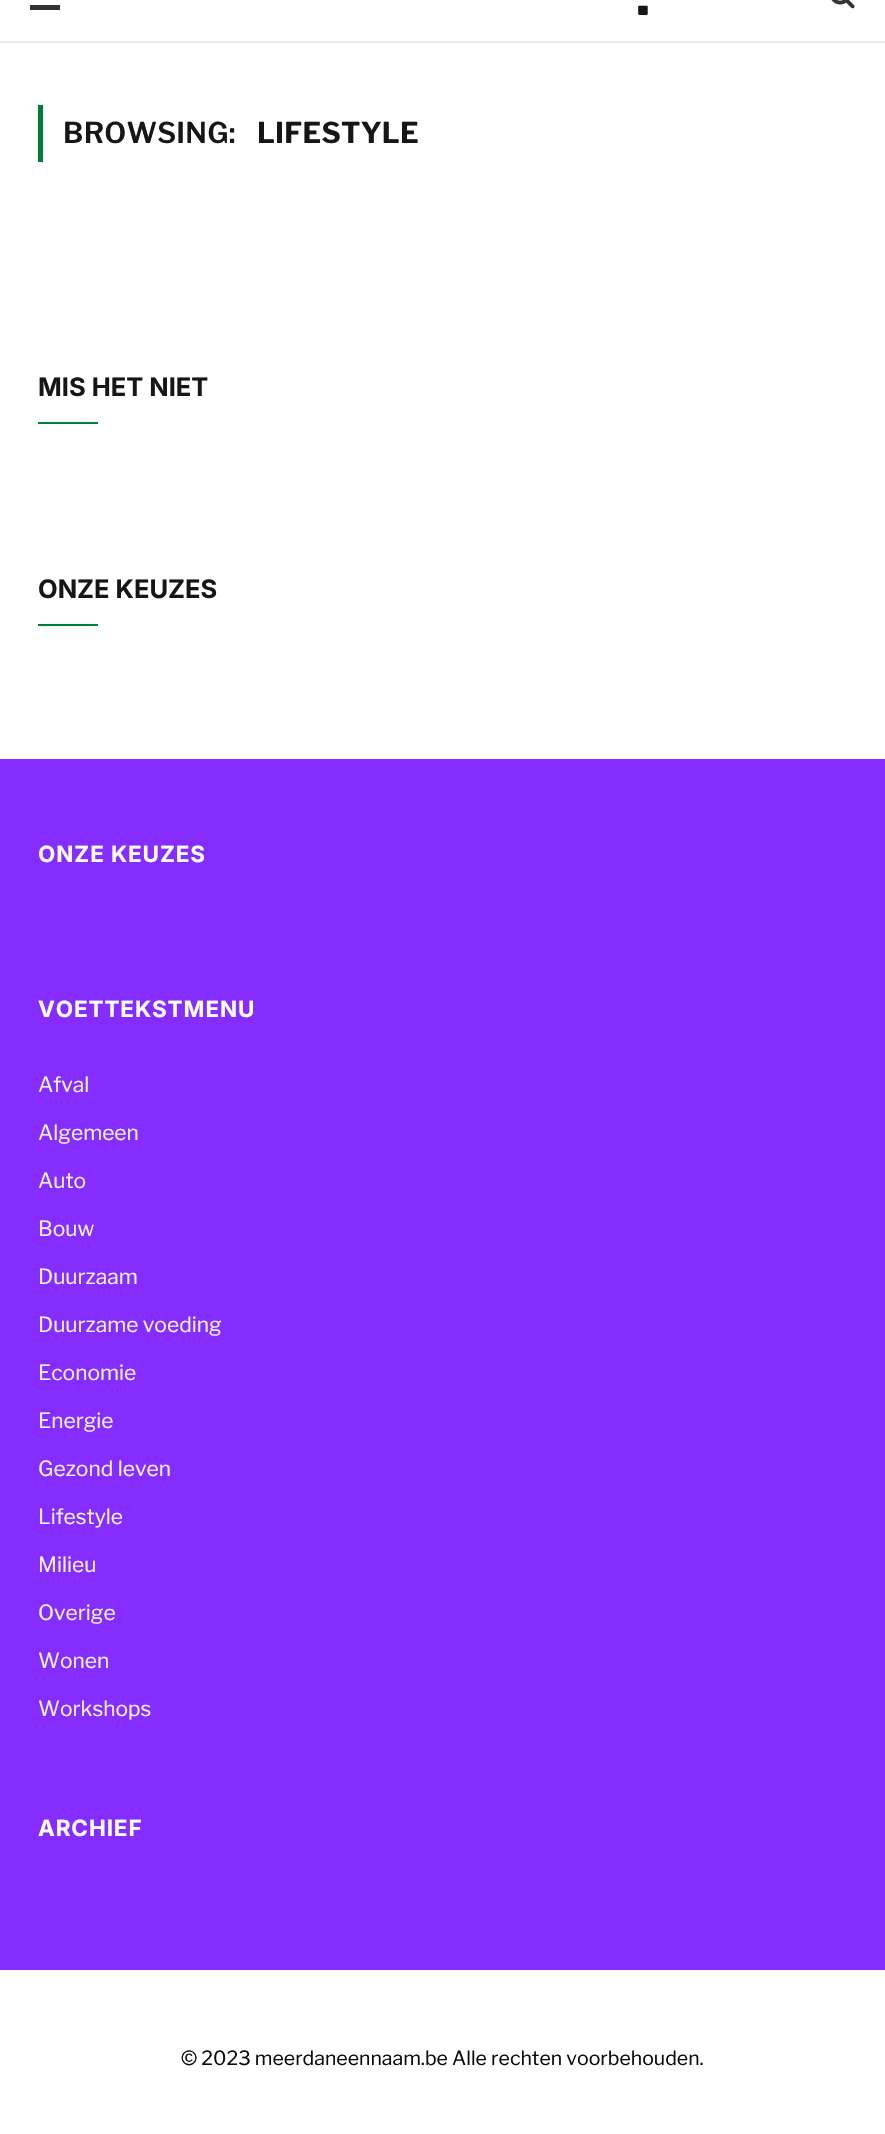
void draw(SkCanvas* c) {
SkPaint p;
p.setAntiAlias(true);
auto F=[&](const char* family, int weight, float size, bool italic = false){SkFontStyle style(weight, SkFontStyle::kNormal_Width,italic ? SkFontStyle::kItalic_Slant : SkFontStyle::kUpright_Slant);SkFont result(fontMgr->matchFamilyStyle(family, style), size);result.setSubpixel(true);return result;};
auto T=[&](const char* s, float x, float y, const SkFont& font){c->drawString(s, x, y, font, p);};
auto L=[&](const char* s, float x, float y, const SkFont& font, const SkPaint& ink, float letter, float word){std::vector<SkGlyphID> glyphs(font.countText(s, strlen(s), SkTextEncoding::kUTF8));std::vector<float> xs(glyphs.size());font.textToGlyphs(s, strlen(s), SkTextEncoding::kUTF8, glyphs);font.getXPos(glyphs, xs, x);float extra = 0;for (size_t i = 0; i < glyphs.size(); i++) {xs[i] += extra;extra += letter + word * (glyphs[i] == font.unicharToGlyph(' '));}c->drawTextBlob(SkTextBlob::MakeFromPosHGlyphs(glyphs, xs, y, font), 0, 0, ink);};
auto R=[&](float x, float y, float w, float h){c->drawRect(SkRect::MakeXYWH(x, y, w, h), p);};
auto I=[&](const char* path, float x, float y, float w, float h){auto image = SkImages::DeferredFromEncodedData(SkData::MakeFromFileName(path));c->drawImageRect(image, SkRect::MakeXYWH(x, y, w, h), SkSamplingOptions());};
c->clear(0xffffffff);
p.setColor(0xffe8e8e8);
R(0,41,885,2);
p.setColor(0xff333333);
R(30,5,30,5);
auto f1 = F("Libre Franklin",700,56);
p.setColor(0xff161616);
L(".",636,15,f1,p,-2,0);
I("1.png",831,0,24,9);
p.setColor(0xff008037);
R(38,105,5,57);
auto f2 = F("Libre Franklin",600,28.5);
p.setColor(0xff161616);
L("BROWSING:",63,143,f2,p,.25,0);
auto f3 = F("Libre Franklin",700,28.5);
L("LIFESTYLE",257,143,f3,p,.25,0);
auto f4 = F("Inter",700,25.5);
T("MIS HET NIET",38,396,f4);
p.setColor(0xff008037);
R(38,422,60,2);
p.setColor(0xff161616);
T("ONZE KEUZES",38,598,f4);
p.setColor(0xff008037);
R(38,624,60,2);
p.setColor(0xff852dff);
R(0,759,885,1211);
auto f5 = F("Inter",700,22.5);
p.setColor(0xffffffff);
L("ONZE KEUZES",38,862,f5,p,.9,0);
L("VOETTEKSTMENU",38,1017,f5,p,.9,0);
auto f6 = F("Libre Franklin",400,21);
p.setColor(0xfff0f0f0);
T("Afval",38,1092,f6);
T("Algemeen",38,1140,f6);
T("Auto",38,1188,f6);
T("Bouw",38,1236,f6);
T("Duurzaam",38,1284,f6);
T("Duurzame voeding",38,1332,f6);
T("Economie",38,1380,f6);
T("Energie",38,1428,f6);
T("Gezond leven",38,1476,f6);
T("Lifestyle",38,1524,f6);
T("Milieu",38,1572,f6);
T("Overige",38,1620,f6);
T("Wonen",38,1668,f6);
T("Workshops",38,1716,f6);
p.setColor(0xffffffff);
L("ARCHIEF",38,1836,f5,p,.9,0);
auto f7 = F("Libre Franklin",400,19.5);
p.setColor(0xff0a0a0a);
T("© 2023 meerdaneennaam.be Alle rechten voorbehouden.",181,2065,f7);
}
